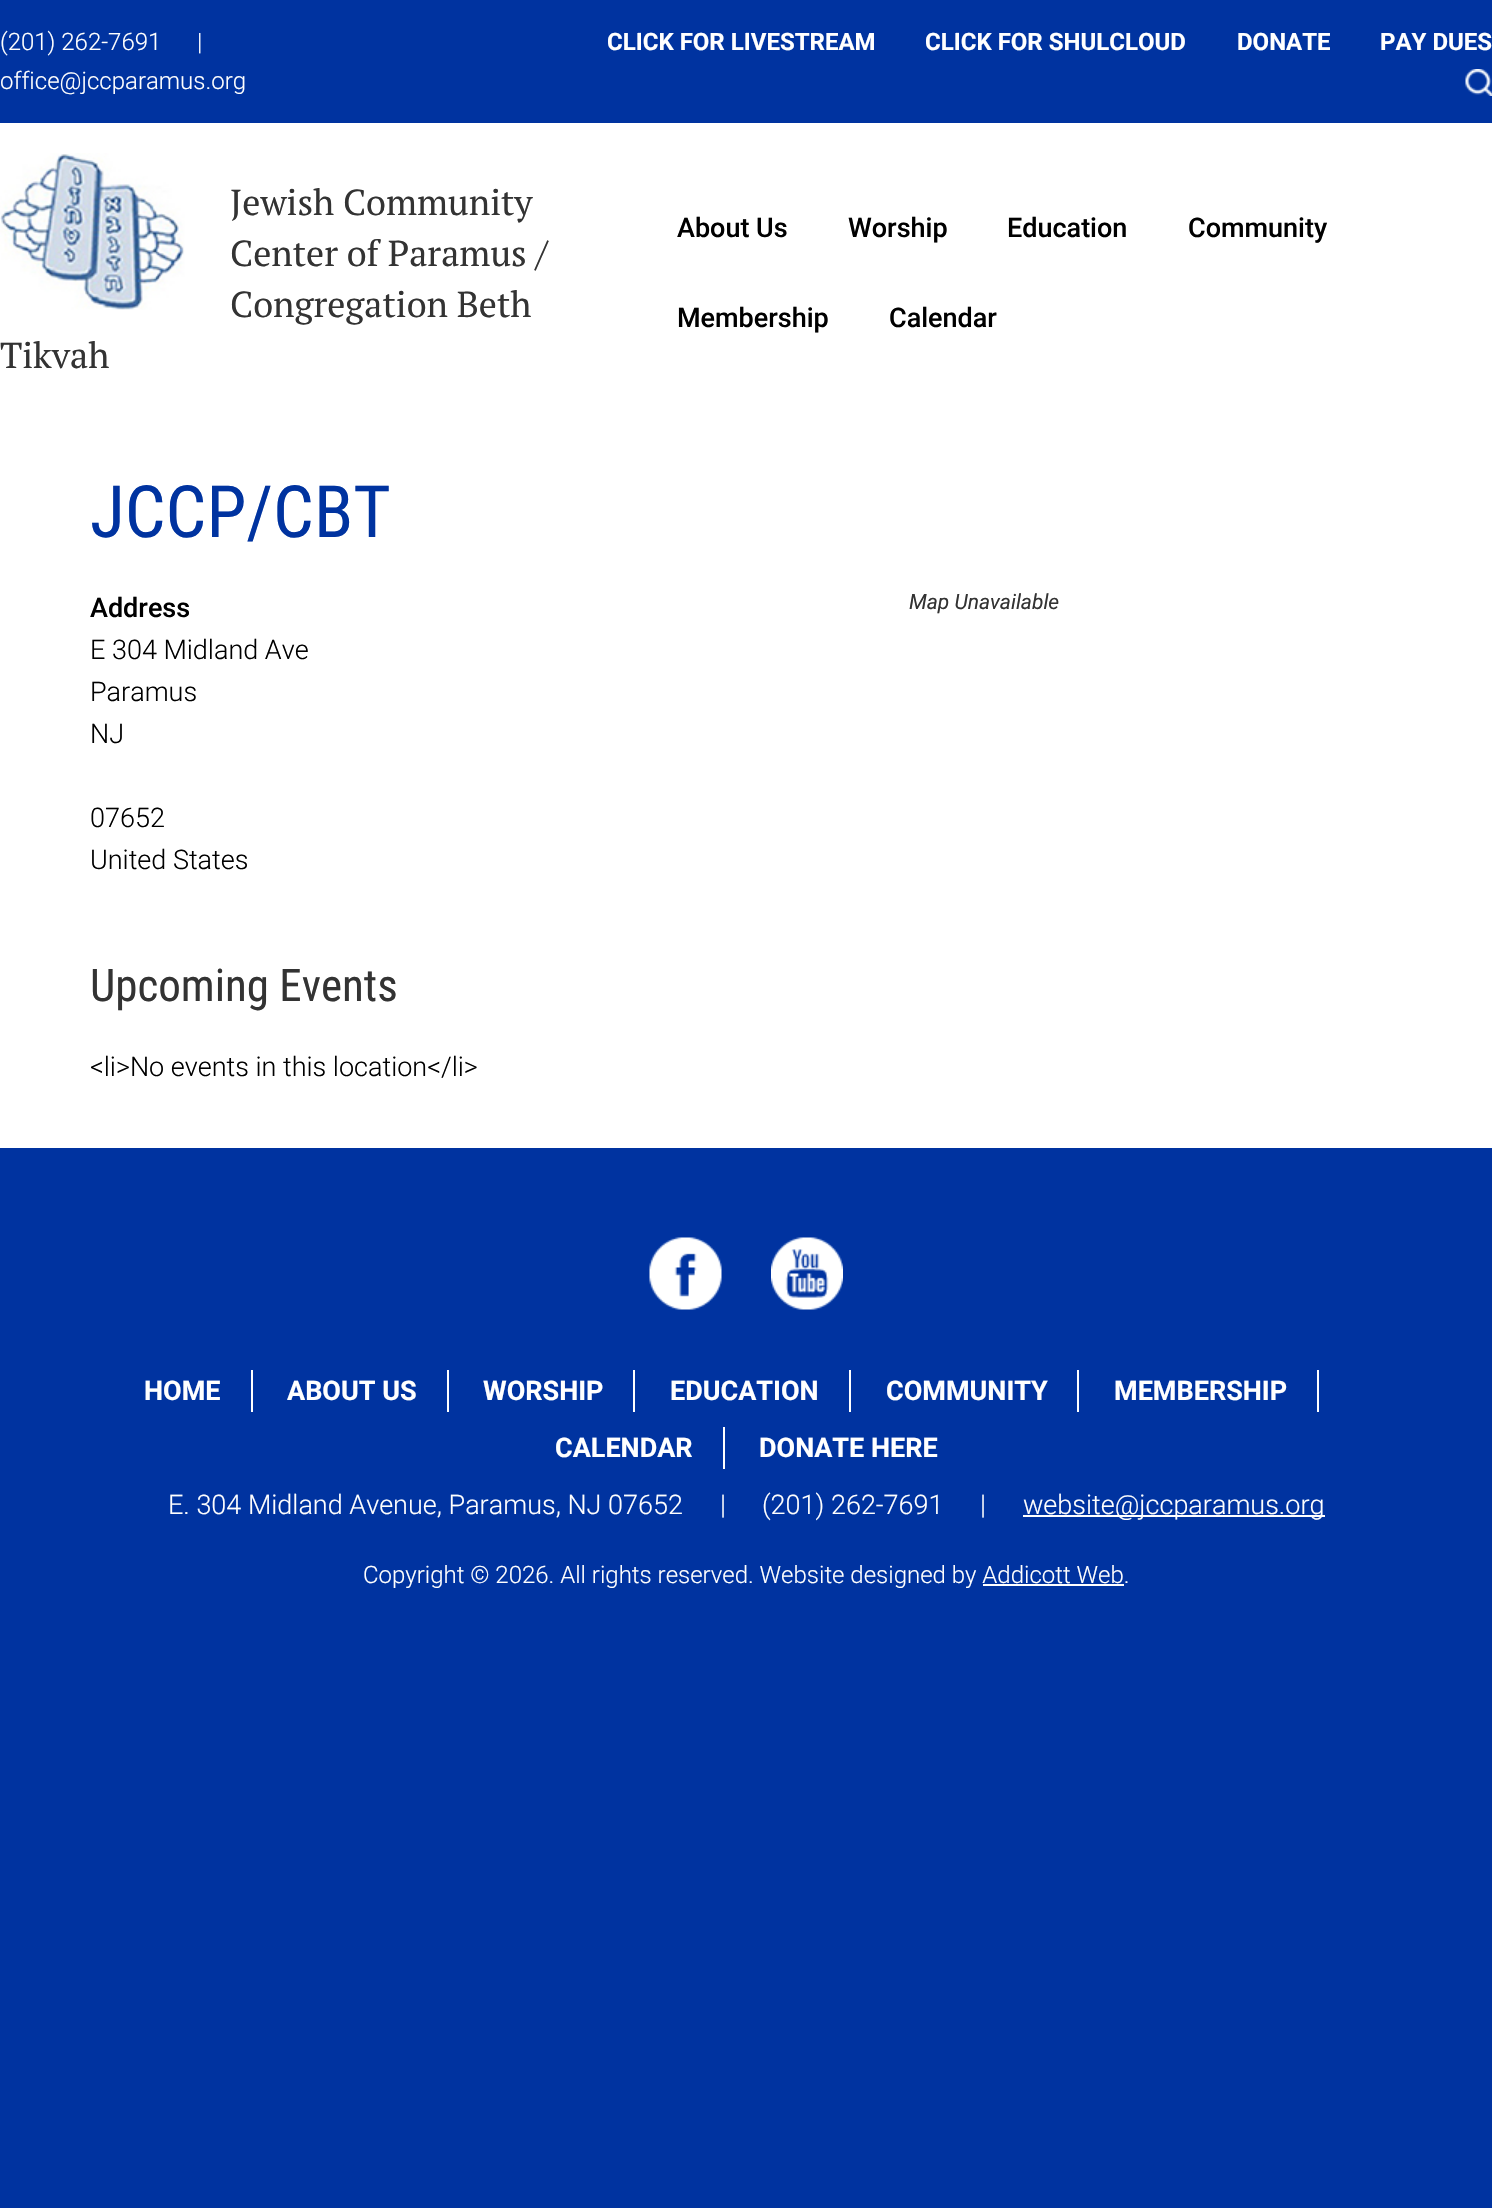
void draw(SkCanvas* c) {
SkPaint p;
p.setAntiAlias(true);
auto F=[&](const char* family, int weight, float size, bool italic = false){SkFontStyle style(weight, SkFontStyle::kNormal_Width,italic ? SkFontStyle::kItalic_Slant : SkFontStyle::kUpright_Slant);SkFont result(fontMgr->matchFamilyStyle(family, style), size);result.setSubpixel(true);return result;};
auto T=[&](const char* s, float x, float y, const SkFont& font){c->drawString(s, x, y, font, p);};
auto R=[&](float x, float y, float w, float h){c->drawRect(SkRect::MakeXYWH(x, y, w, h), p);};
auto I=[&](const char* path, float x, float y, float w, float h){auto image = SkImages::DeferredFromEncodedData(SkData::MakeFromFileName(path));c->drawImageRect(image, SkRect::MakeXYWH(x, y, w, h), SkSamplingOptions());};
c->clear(0xff0033a0);
auto f1 = F("Roboto",300,24);
p.setColor(0xffffffff);
T("(201) 262-7691",0,50,f1);
T("|",197,50,f1);
T("office@jccparamus.org",0,89,f1);
auto f2 = F("Roboto",700,24);
T("CLICK FOR LIVESTREAM",607,50,f2);
T("CLICK FOR SHULCLOUD",925,50,f2);
T("DONATE",1237,50,f2);
T("PAY DUES",1380,50,f2);
I("1.png",1465,69,27,27);
R(0,123,1492,1025);
I("2.png",0,153,185,157);
auto f3 = F("PT Serif",400,36);
p.setColor(0xff333333);
T("Jewish Community",230,215,f3);
T("Center of Paramus /",230,266,f3);
T("Congregation Beth",230,317,f3);
T("Tikvah",0,368,f3);
auto f4 = F("Roboto",500,27);
p.setColor(0xff000000);
T("About Us",677,237,f4);
T("Worship",848,237,f4);
T("Education",1007,237,f4);
T("Community",1188,237,f4);
T("Membership",677,327,f4);
T("Calendar",889,327,f4);
auto f5 = F("Roboto Condensed",400,72);
p.setColor(0xff0033a0);
T("JCCP/CBT",90,537,f5);
p.setColor(0xff000000);
T("Address",90,617,f4);
auto f6 = F("Roboto",300,27);
T("E 304 Midland Ave",90,659,f6);
T("Paramus",90,701,f6);
T("NJ",90,743,f6);
T("07652",90,827,f6);
T("United States",90,869,f6);
auto f7 = F("Roboto",400,21,true);
p.setColor(0xff333333);
T("Map Unavailable",909,609,f7);
auto f8 = F("Roboto Condensed",400,45);
T("Upcoming Events",90,1001,f8);
p.setColor(0xff000000);
T("<li>No events in this location</li>",90,1076,f6);
I("3.png",649,1237,73,73);
I("4.png",771,1237,72,73);
p.setColor(0xffffffff);
R(251,1370,2,42);
auto f9 = F("Roboto",700,27);
T("HOME",144,1400,f9);
R(447,1370,2,42);
T("ABOUT US",287,1400,f9);
R(633,1370,2,42);
T("WORSHIP",483,1400,f9);
R(849,1370,2,42);
T("EDUCATION",670,1400,f9);
R(1077,1370,2,42);
T("COMMUNITY",886,1400,f9);
R(1317,1370,2,42);
T("MEMBERSHIP",1114,1400,f9);
R(723,1427,2,42);
T("CALENDAR",555,1457,f9);
T("DONATE HERE",759,1457,f9);
T("E. 304 Midland Avenue, Paramus, NJ 07652",168,1514,f6);
T("|",720,1514,f6);
T("(201) 262-7691",762,1514,f6);
T("|",980,1514,f6);
R(1023,1515,302,2);
T("website@jccparamus.org",1023,1514,f6);
T("Copyright © 2026. All rights reserved. Website designed by Addicott Web.",363,1583,f1);
R(983,1584,141,2);
}
